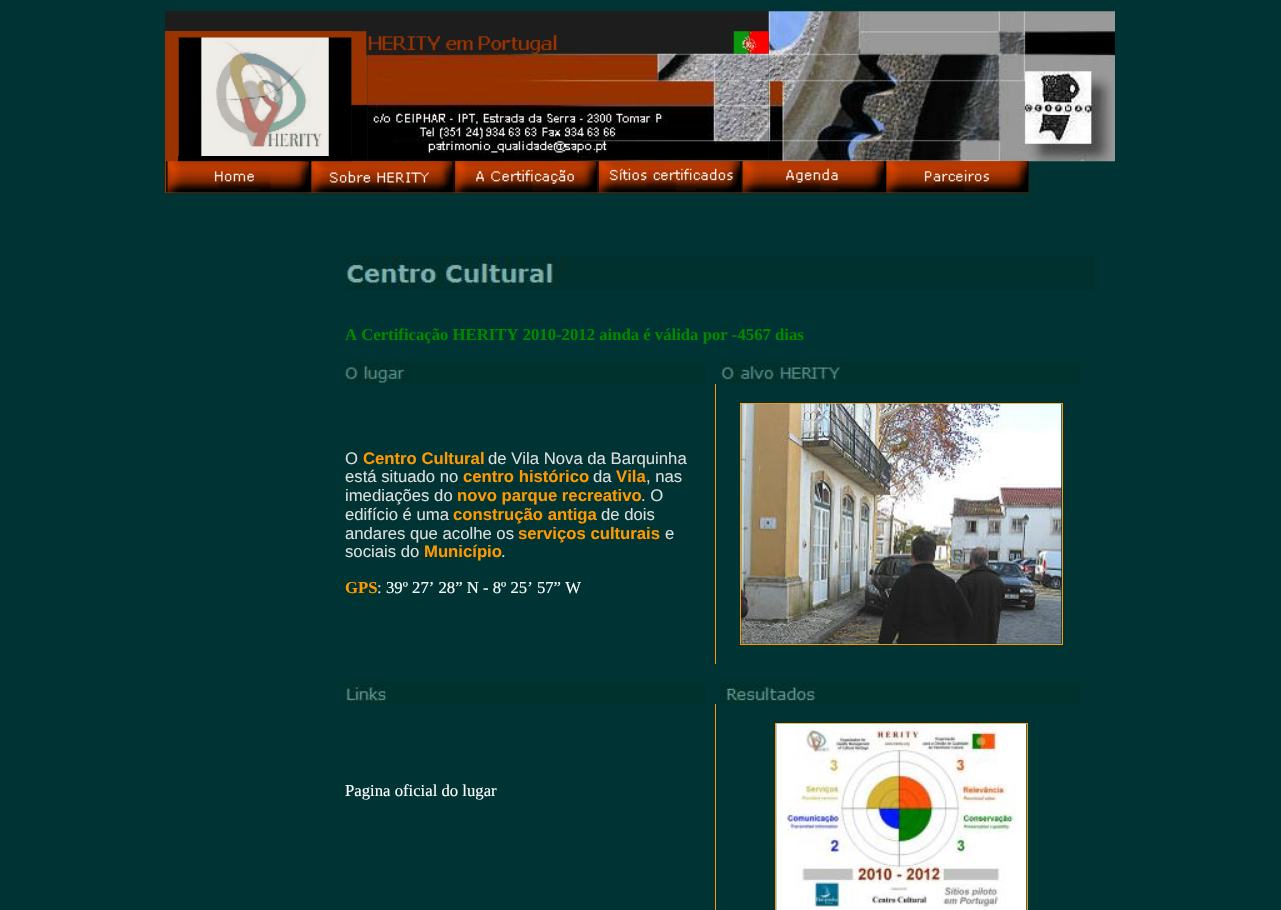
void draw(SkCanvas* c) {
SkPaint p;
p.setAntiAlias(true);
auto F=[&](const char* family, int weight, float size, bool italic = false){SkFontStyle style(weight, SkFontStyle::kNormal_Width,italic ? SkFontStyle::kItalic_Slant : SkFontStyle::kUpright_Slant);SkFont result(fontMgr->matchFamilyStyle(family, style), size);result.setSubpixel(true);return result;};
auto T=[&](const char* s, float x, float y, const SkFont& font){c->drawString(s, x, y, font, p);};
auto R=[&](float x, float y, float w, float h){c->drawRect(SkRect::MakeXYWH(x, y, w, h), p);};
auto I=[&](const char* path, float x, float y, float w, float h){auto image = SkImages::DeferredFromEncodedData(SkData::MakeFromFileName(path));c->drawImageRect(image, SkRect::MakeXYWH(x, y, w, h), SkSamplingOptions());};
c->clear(0xff003333);
p.setColor(0xff1d1d1d);
R(165,11,604,21);
p.setColor(0xff993300);
R(165,161,864,32);
I("1.png",768,11,347,151);
R(165,31,14,130);
R(179,31,173,7);
I("2.png",351,31,17,131);
I("3.png",367,31,402,23);
I("4.png",178,37,174,119);
I("5.png",367,53,402,109);
p.setColor(0xff000000);
R(178,156,174,6);
I("6.png",166,161,144,32);
I("7.png",310,161,144,32);
I("8.png",453,161,145,32);
I("9.png",597,161,145,32);
I("10.png",741,161,144,32);
I("11.png",885,161,144,32);
I("12.png",345,256,750,34);
auto f1 = F("Liberation Serif",700,16.7);
p.setColor(0xff008800);
T("A Certificação HERITY 2010-2012 ainda é válida por -4567 dias",345,340,f1);
I("13.png",345,362,360,22);
I("14.png",720,362,360,22);
p.setColor(0xffff9900);
R(715,384,1,280);
auto f2 = F("Liberation Sans",400,16.7);
p.setColor(0xffdddddd);
T("O",345,464,f2);
auto f3 = F("Liberation Sans",700,16.7);
p.setColor(0xffff9900);
T("Centro Cultural",363,464,f3);
p.setColor(0xffdddddd);
T("de Vila Nova da Barquinha",488,464,f2);
T("está situado no",345,482,f2);
p.setColor(0xffff9900);
T("centro histórico",463,482,f3);
p.setColor(0xffdddddd);
T("da",593,482,f2);
p.setColor(0xffff9900);
T("Vila",616,482,f3);
p.setColor(0xffdddddd);
T(", nas",646,482,f2);
T("imediações do",345,501,f2);
p.setColor(0xffff9900);
T("novo parque recreativo",457,501,f3);
p.setColor(0xffdddddd);
T(". O",641,501,f2);
T("edifício é uma",345,520,f2);
p.setColor(0xffff9900);
T("construção antiga",453,520,f3);
p.setColor(0xffdddddd);
T("de dois",601,520,f2);
T("andares que acolhe os",345,539,f2);
p.setColor(0xffff9900);
T("serviços culturais",518,539,f3);
p.setColor(0xffdddddd);
T("e",665,539,f2);
T("sociais do",345,557,f2);
p.setColor(0xffff9900);
T("Município",424,557,f3);
p.setColor(0xffdddddd);
T(".",501,557,f2);
p.setColor(0xffff9900);
T("GPS",345,593,f1);
auto f4 = F("Liberation Serif",400,16.7);
p.setColor(0xffdddddd);
T(":",377,593,f4);
p.setColor(0xffffffff);
T("39º 27’ 28” N - 8º 25’ 57” W",386,593,f4);
p.setStroke(true);
p.setStrokeWidth(1);
p.setColor(0xffff9900);
c->drawRect(SkRect::MakeXYWH(740.5,403.5,322,241),p);
I("15.png",741,403,321,241);
I("16.png",345,682,360,22);
I("17.png",720,682,360,22);
p.setStroke(false);
R(715,704,1,206);
p.setColor(0xffffffff);
T("Pagina oficial do lugar",345,796,f4);
p.setStroke(true);
p.setColor(0xffff9900);
c->drawRect(SkRect::MakeXYWH(775.5,723.5,252,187),p);
I("18.png",776,723,251,187);
}
